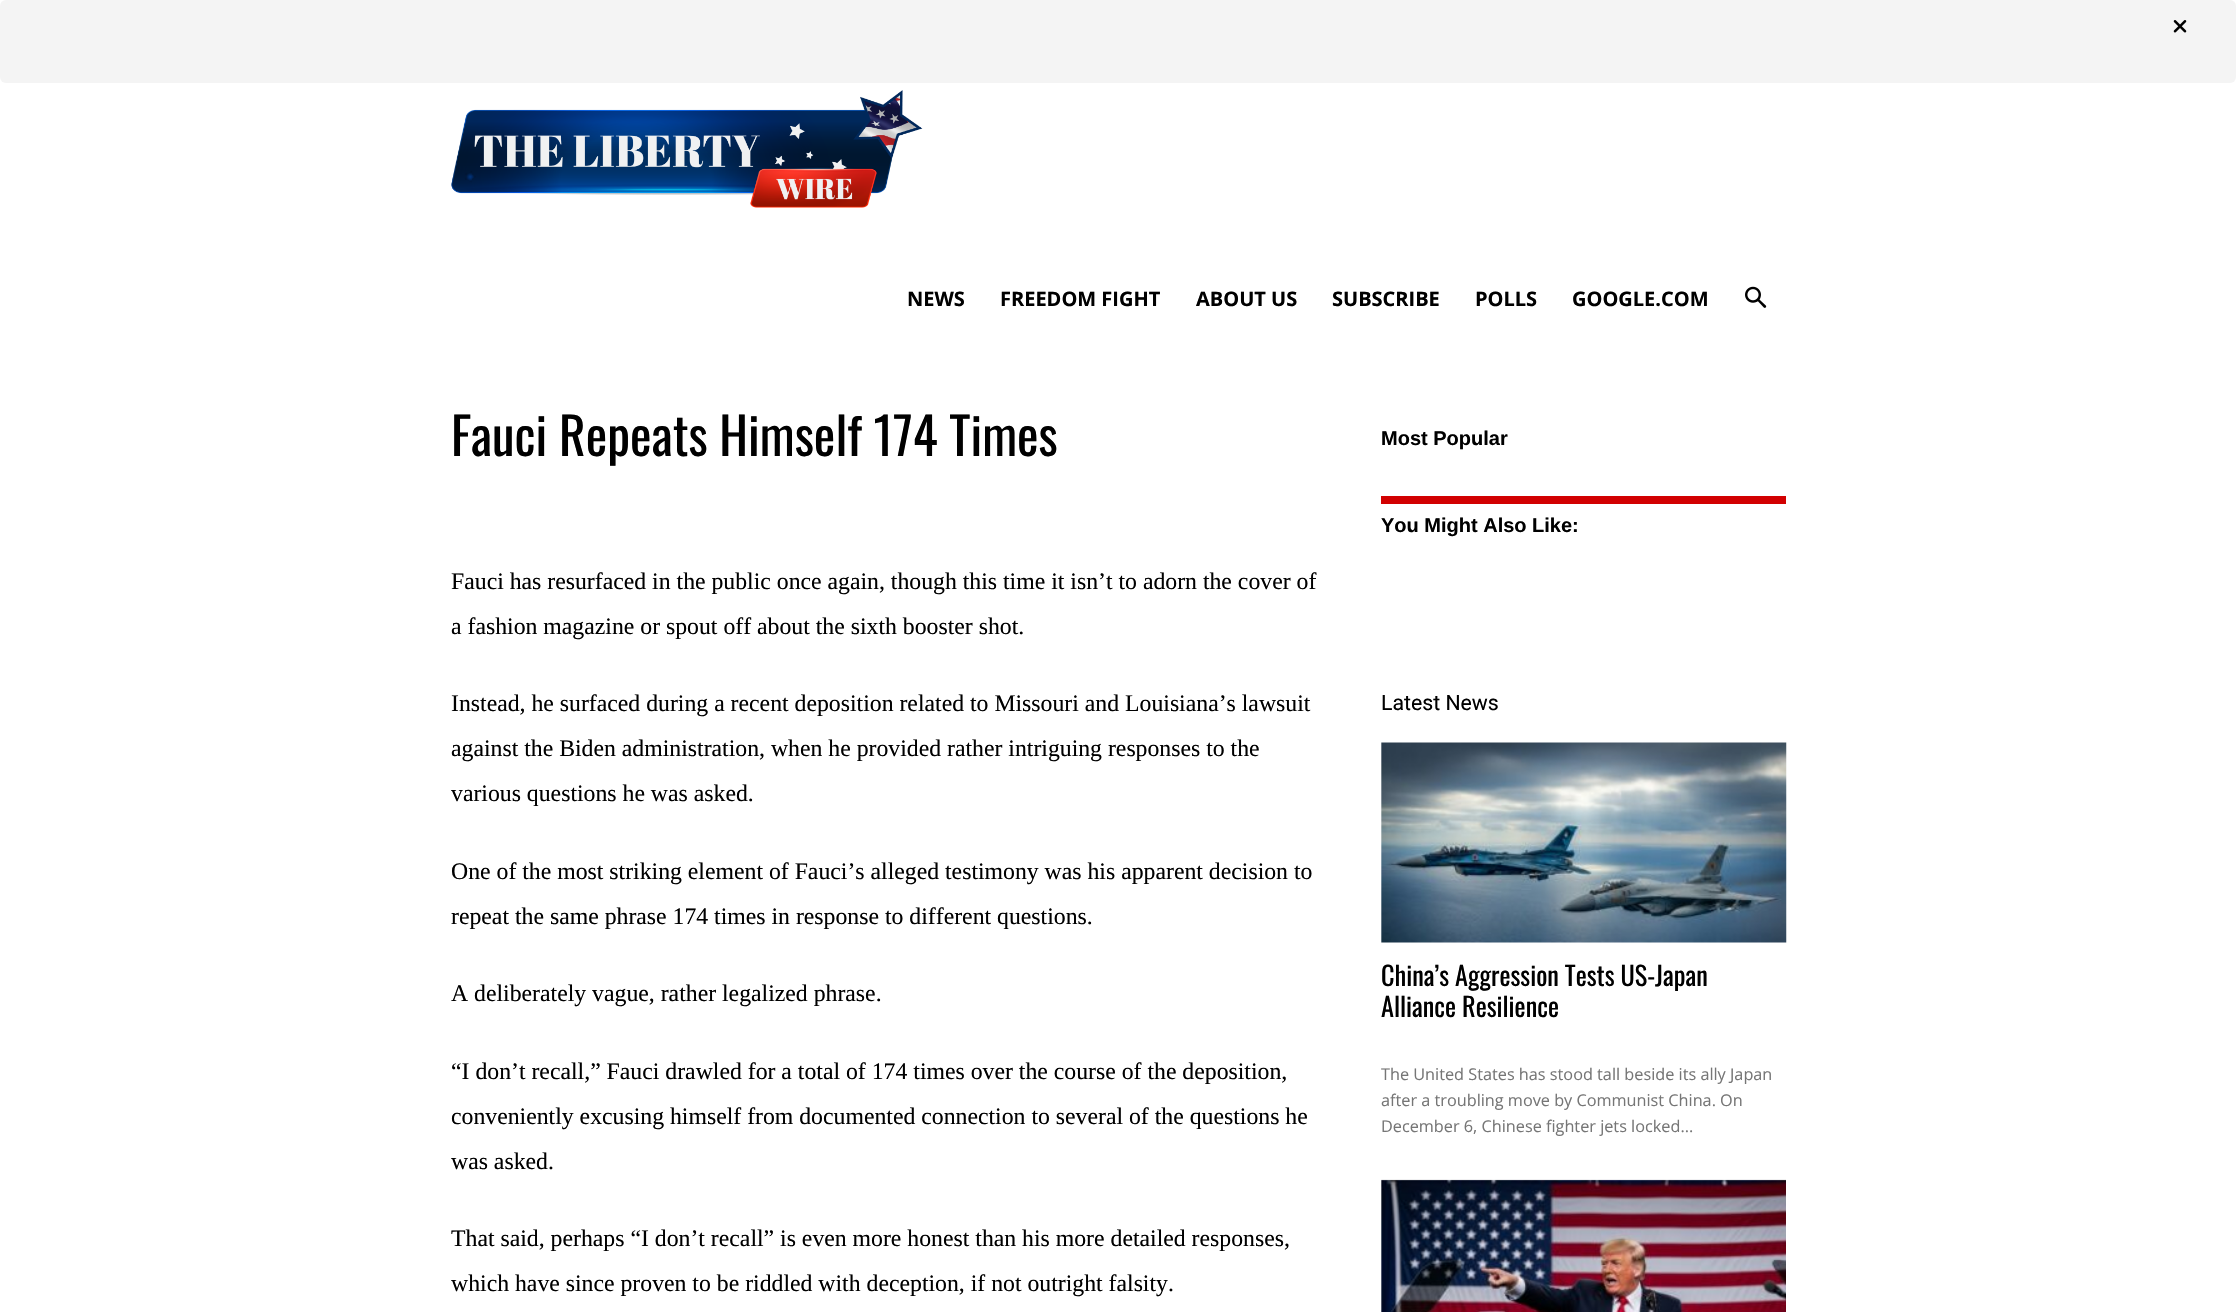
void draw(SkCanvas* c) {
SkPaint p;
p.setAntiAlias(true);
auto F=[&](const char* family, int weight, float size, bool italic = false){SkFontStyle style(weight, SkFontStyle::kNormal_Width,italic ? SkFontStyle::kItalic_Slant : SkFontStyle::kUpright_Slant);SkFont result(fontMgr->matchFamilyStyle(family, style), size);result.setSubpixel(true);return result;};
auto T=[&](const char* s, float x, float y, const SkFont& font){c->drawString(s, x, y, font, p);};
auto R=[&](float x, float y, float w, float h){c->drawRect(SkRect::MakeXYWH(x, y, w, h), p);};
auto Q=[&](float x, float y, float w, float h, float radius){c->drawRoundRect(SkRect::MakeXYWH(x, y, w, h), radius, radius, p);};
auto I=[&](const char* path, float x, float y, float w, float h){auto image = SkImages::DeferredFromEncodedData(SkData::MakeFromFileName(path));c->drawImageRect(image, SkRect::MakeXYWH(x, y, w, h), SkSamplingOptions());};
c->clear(0xffffffff);
p.setColor(0xfff4f4f4);
Q(0,0,2236,83,6);
I("1.png",2173,20,14,13);
I("2.png",451,90,472,118);
auto f1 = F("Open Sans",700,20);
p.setColor(0xff000000);
T("NEWS",907,306,f1);
T("FREEDOM FIGHT",1000,306,f1);
T("ABOUT US",1196,306,f1);
T("SUBSCRIBE",1332,306,f1);
T("POLLS",1475,306,f1);
T("GOOGLE.COM",1572,306,f1);
I("3.png",1745,286,22,22);
auto f2 = F("Oswald",400,51.25);
T("Fauci Repeats Himself 174 Times",451,456,f2);
auto f3 = F("Liberation Serif",400,23.75);
T("Fauci has resurfaced in the public once again, though this time it isn’t to adorn the cover of",451,589,f3);
T("a fashion magazine or spout off about the sixth booster shot.",451,634,f3);
T("Instead, he surfaced during a recent deposition related to Missouri and Louisiana’s lawsuit",451,711,f3);
T("against the Biden administration, when he provided rather intriguing responses to the",451,756,f3);
T("various questions he was asked.",451,801,f3);
T("One of the most striking element of Fauci’s alleged testimony was his apparent decision to",451,879,f3);
T("repeat the same phrase 174 times in response to different questions.",451,924,f3);
T("A deliberately vague, rather legalized phrase.",451,1001,f3);
T("“I don’t recall,” Fauci drawled for a total of 174 times over the course of the deposition,",451,1079,f3);
T("conveniently excusing himself from documented connection to several of the questions he",451,1124,f3);
T("was asked.",451,1169,f3);
T("That said, perhaps “I don’t recall” is even more honest than his more detailed responses,",451,1246,f3);
T("which have since proven to be riddled with deception, if not outright falsity.",451,1291,f3);
auto f4 = F("Liberation Sans",700,20);
T("Most Popular",1381,445,f4);
p.setColor(0xffd20001);
R(1381,496,405,8);
p.setColor(0xff000000);
T("You Might Also Like:",1381,532,f4);
auto f5 = F("Roboto",400,21.25);
T("Latest News",1381,710,f5);
I("4.png",1381,742,406,201);
auto f6 = F("Oswald",400,26.25);
T("China’s Aggression Tests US-Japan",1381,986,f6);
T("Alliance Resilience",1381,1017,f6);
auto f7 = F("Open Sans",400,16.25);
p.setColor(0xff767676);
T("The United States has stood tall beside its ally Japan",1381,1080,f7);
T("after a troubling move by Communist China. On",1381,1106,f7);
T("December 6, Chinese fighter jets locked...",1381,1132,f7);
I("5.png",1381,1179,405,133);
}
